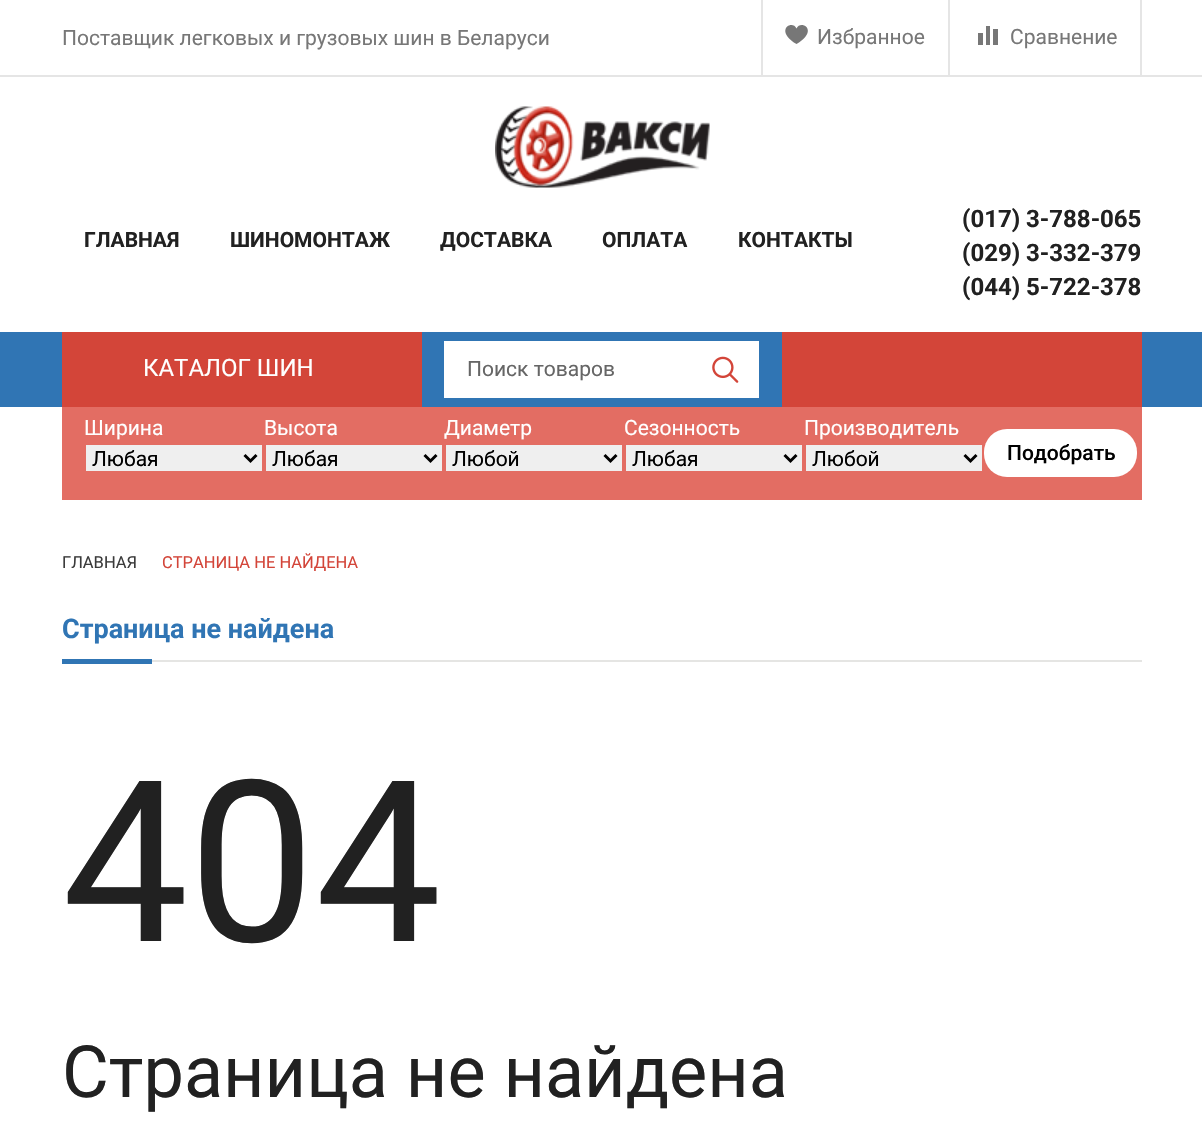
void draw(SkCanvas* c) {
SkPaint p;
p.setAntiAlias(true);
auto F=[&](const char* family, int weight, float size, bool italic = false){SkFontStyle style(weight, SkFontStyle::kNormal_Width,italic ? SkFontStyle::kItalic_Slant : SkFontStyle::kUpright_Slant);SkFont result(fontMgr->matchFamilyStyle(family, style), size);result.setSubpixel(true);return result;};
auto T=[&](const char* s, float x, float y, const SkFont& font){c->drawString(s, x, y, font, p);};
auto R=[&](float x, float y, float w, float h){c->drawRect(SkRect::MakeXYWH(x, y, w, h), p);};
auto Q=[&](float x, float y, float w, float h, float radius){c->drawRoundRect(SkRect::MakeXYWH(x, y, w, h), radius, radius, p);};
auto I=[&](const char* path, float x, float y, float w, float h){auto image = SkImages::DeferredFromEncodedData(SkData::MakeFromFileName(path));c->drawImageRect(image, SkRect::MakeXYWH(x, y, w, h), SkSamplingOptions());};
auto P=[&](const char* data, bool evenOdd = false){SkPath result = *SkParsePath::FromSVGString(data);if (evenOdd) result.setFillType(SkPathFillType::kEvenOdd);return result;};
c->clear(0xffffffff);
p.setColor(0xffe5e5e5);
R(0,75,1202,2);
auto f1 = F("Roboto",400,21);
p.setColor(0xff777777);
T("Поставщик легковых и грузовых шин в Беларуси",62,45,f1);
p.setColor(0xffe5e5e5);
R(948,0,2,75);
R(761,0,2,75);
p.setColor(0xff777777);
T("Избранное",817,44,f1);
c->drawPath(P("M796.5 28.5c-4-9.5-23 1.5 0 15.5c23.5-14 4-25 0-15.5z"),p);
p.setColor(0xffe5e5e5);
R(1140,0,2,75);
p.setColor(0xff777777);
T("Сравнение",1010,44,f1);
R(978,33,5,12);
R(986,26,4,19);
R(993,29,5,16);
I("1.png",495,106,215,82);
auto f2 = F("Roboto",700,21);
p.setColor(0xff212121);
T("ГЛАВНАЯ",84,247,f2);
T("ШИНОМОНТАЖ",230,247,f2);
T("ДОСТАВКА",440,247,f2);
T("ОПЛАТА",602,247,f2);
T("КОНТАКТЫ",738,247,f2);
auto f3 = F("Roboto",700,24);
T("(017) 3-788-065",962,227,f3);
T("(029) 3-332-379",962,261,f3);
T("(044) 5-722-378",962,295,f3);
p.setColor(0xff3075b4);
R(0,332,1202,75);
p.setColor(0xffd34539);
R(62,332,360,75);
auto f4 = F("Roboto",400,24);
p.setColor(0xffffffff);
T("КАТАЛОГ ШИН",143,376,f4);
R(444,341,315,57);
p.setColor(0xff666666);
T("Поиск товаров",467,376,f1);
I("2.png",712,356,27,27);
p.setColor(0xffd34539);
R(782,332,360,75);
p.setColor(0xffe36d63);
R(62,407,1080,93);
p.setColor(0xffffffff);
T("Ширина",84,435,f1);
p.setColor(0xffefefef);
R(86,445,176,26);
p.setStroke(true);
p.setStrokeWidth(3);
p.setColor(0xff000000);
c->drawPath(P("M244.5 455l6 6l6-6"),p);
p.setStroke(false);
T("Любая",92,466,f1);
p.setColor(0xffffffff);
T("Высота",264,435,f1);
p.setColor(0xffefefef);
R(266,445,176,26);
p.setStroke(true);
p.setColor(0xff000000);
c->drawPath(P("M424.5 455l6 6l6-6"),p);
p.setStroke(false);
T("Любая",272,466,f1);
p.setColor(0xffffffff);
T("Диаметр",444,435,f1);
p.setColor(0xffefefef);
R(446,445,176,26);
p.setStroke(true);
p.setColor(0xff000000);
c->drawPath(P("M604.5 455l6 6l6-6"),p);
p.setStroke(false);
T("Любой",452,466,f1);
p.setColor(0xffffffff);
T("Сезонность",624,435,f1);
p.setColor(0xffefefef);
R(626,445,176,26);
p.setStroke(true);
p.setColor(0xff000000);
c->drawPath(P("M784.5 455l6 6l6-6"),p);
p.setStroke(false);
T("Любая",632,466,f1);
p.setColor(0xffffffff);
T("Производитель",804,435,f1);
p.setColor(0xffefefef);
R(806,445,176,26);
p.setStroke(true);
p.setColor(0xff000000);
c->drawPath(P("M964.5 455l6 6l6-6"),p);
p.setStroke(false);
T("Любой",812,466,f1);
p.setColor(0xffffffff);
Q(984,429,153,48,23);
auto f5 = F("Roboto",500,21);
p.setColor(0xff000000);
T("Подобрать",1007,460,f5);
auto f6 = F("Roboto",400,16.5);
p.setColor(0xff3b3b3b);
T("ГЛАВНАЯ",62,568,f6);
p.setColor(0xffd34539);
T("СТРАНИЦА НЕ НАЙДЕНА",162,568,f6);
p.setColor(0xffe5e5e3);
R(152,660,990,2);
auto f7 = F("Roboto",700,27);
p.setColor(0xff3075b4);
T("Страница не найдена",62,638,f7);
R(62,659,90,5);
auto f8 = F("Roboto",400,225);
p.setColor(0xff212121);
T("404",62,941,f8);
auto f9 = F("Roboto",400,72);
T("Страница не найдена",62,1097,f9);
}
